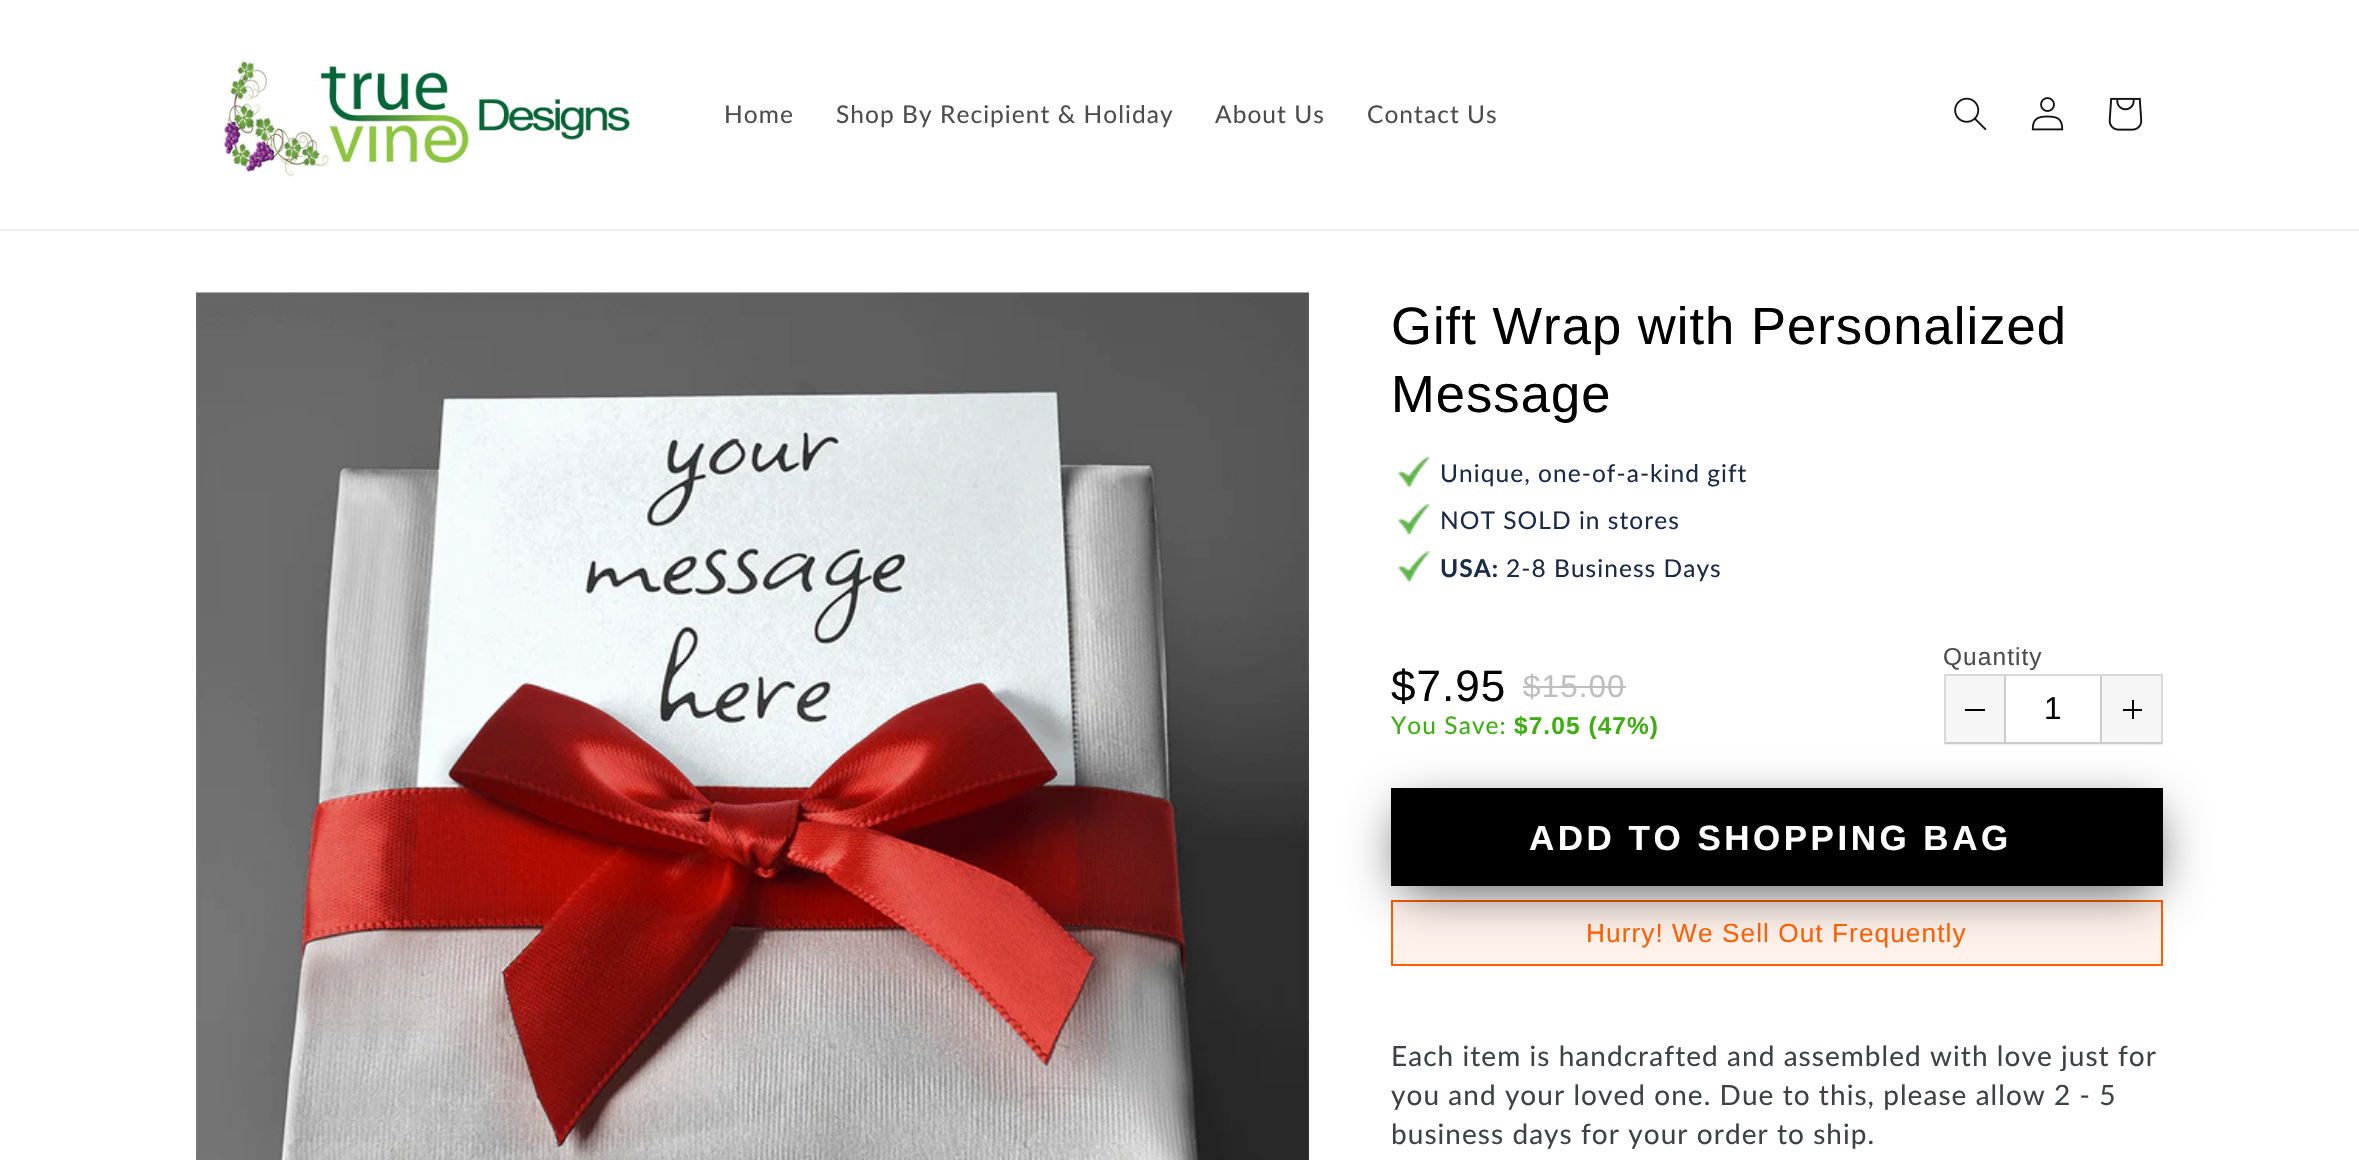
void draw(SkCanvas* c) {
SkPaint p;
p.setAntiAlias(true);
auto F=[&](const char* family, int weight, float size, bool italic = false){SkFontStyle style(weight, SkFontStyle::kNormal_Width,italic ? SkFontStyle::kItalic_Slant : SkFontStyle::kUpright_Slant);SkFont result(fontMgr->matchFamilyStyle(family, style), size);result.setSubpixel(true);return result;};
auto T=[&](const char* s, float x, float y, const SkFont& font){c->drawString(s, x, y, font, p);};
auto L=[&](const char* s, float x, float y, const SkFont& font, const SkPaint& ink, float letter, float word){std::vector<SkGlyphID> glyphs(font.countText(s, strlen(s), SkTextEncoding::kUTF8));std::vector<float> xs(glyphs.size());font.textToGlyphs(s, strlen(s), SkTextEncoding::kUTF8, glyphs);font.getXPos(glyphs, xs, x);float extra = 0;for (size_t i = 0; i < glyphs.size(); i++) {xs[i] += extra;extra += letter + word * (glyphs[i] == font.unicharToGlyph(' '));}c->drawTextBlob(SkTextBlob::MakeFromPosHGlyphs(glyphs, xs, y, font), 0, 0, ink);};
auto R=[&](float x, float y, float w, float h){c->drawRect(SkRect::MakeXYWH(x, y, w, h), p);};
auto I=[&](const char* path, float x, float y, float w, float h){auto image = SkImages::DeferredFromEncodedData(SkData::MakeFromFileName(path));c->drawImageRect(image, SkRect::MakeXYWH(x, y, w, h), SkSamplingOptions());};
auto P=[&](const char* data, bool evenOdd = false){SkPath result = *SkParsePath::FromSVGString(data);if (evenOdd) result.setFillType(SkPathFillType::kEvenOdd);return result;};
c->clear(0xffffffff);
p.setColor(0xffececec);
R(0,229,2359,2);
I("1.png",223,60,408,119);
auto f1 = F("Lato",400,24.5);
p.setColor(0xff4d4d4d);
L("Home",724,123,f1,p,1.05,0);
L("Shop By Recipient & Holiday",836,123,f1,p,1.05,0);
L("About Us",1215,123,f1,p,1.05,0);
L("Contact Us",1367,123,f1,p,1.05,0);
I("2.png",1954,97,33,34);
I("3.png",2031,97,33,34);
I("4.png",2108,97,35,34);
I("5.png",196,292,1113,868);
auto f2 = F("Liberation Sans",400,52.5);
p.setColor(0xff000000);
L("Gift Wrap with Personalized",1391,344,f2,p,1.05,0);
L("Message",1391,412,f2,p,1.05,0);
I("6.png",1397,456,33,32);
p.setColor(0xff1a2a47);
L("Unique, one-of-a-kind gift",1440,482,f1,p,1.05,0);
I("7.png",1397,504,33,32);
L("NOT SOLD in stores",1440,529,f1,p,1.05,0);
I("8.png",1397,551,33,32);
auto f3 = F("Lato",700,24.5);
L("USA:",1440,577,f3,p,1.05,0);
L("2-8 Business Days",1506,577,f1,p,1.05,0);
auto f4 = F("Liberation Sans",400,44);
p.setColor(0xff000000);
L("$7.95",1391,701,f4,p,1.05,0);
auto f5 = F("Liberation Sans",400,31.5);
p.setColor(0xffbfbfbf);
L("$15.00",1523,697,f5,p,1.05,0);
R(1523,686,103,2);
p.setColor(0xff40ac14);
L("You Save:",1391,734,f1,p,1.05,0);
auto f6 = F("Liberation Sans",700,24.5);
L("$7.05 (47%)",1514,734,f6,p,1.05,0);
auto f7 = F("Liberation Sans",400,24.5);
p.setColor(0xff4d4d4d);
L("Quantity",1943,665,f7,p,1.05,0);
c->save();
c->clipRect(SkRect::MakeXYWH(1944,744,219,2));
p.setColor(0x0d000000);
p.setMaskFilter(SkMaskFilter::MakeBlur(kNormal_SkBlurStyle, 1));
c->drawRect(SkRect::MakeXYWH(1944,676,219,70),p);
p.setMaskFilter(nullptr);
c->restore();
p.setColor(0xffd9d9d9);
c->drawPath(P("M1944 674h219l-2 2h-215z"),p);
p.setColor(0x26000000);
c->drawPath(P("M2163 674v70l-2-2v-66z"),p);
p.setColor(0x33000000);
c->drawPath(P("M2163 744h-219l2-2h215z"),p);
p.setColor(0x26000000);
c->drawPath(P("M1944 744v-70l2 2v66z"),p);
p.setColor(0xfff6f6f6);
R(1946,676,58,66);
p.setColor(0xffcccccc);
R(2004,676,2,66);
p.setColor(0xff000000);
R(1965,709,20,2);
T("1",2044,719,f5);
p.setColor(0xfff6f6f6);
R(2102,676,59,66);
p.setColor(0xffcccccc);
R(2100,676,2,66);
p.setColor(0xff000000);
R(2132,700,2,19);
R(2123,709,19,2);
p.setColor(0xfffff2eb);
c->drawRect(SkRect::MakeXYWH(1392,901,770,64),p);
p.setStroke(true);
p.setStrokeWidth(2);
p.setColor(0xffff5f01);
c->drawRect(SkRect::MakeXYWH(1392,901,770,64),p);
p.setStroke(false);
p.setColor(0xb3000000);
p.setMaskFilter(SkMaskFilter::MakeBlur(kNormal_SkBlurStyle, 26));
c->drawRect(SkRect::MakeXYWH(1402,812,751,77),p);
p.setMaskFilter(nullptr);
p.setColor(0xff000000);
R(1391,788,772,98);
auto f8 = F("Liberation Sans",700,35);
p.setColor(0xffffffff);
L("ADD TO SHOPPING BAG",1529,850,f8,p,3.5,0);
auto f9 = F("Liberation Sans",400,26.25);
p.setColor(0xffff5f01);
L("Hurry! We Sell Out Frequently",1586,942,f9,p,1.05,0);
auto f10 = F("Lato",400,28);
p.setColor(0xff3d4246);
L("Each item is handcrafted and assembled with love just for",1391,1066,f10,p,1.05,0);
L("you and your loved one. Due to this, please allow 2 - 5",1391,1105,f10,p,1.05,0);
L("business days for your order to ship.",1391,1144,f10,p,1.05,0);
}
